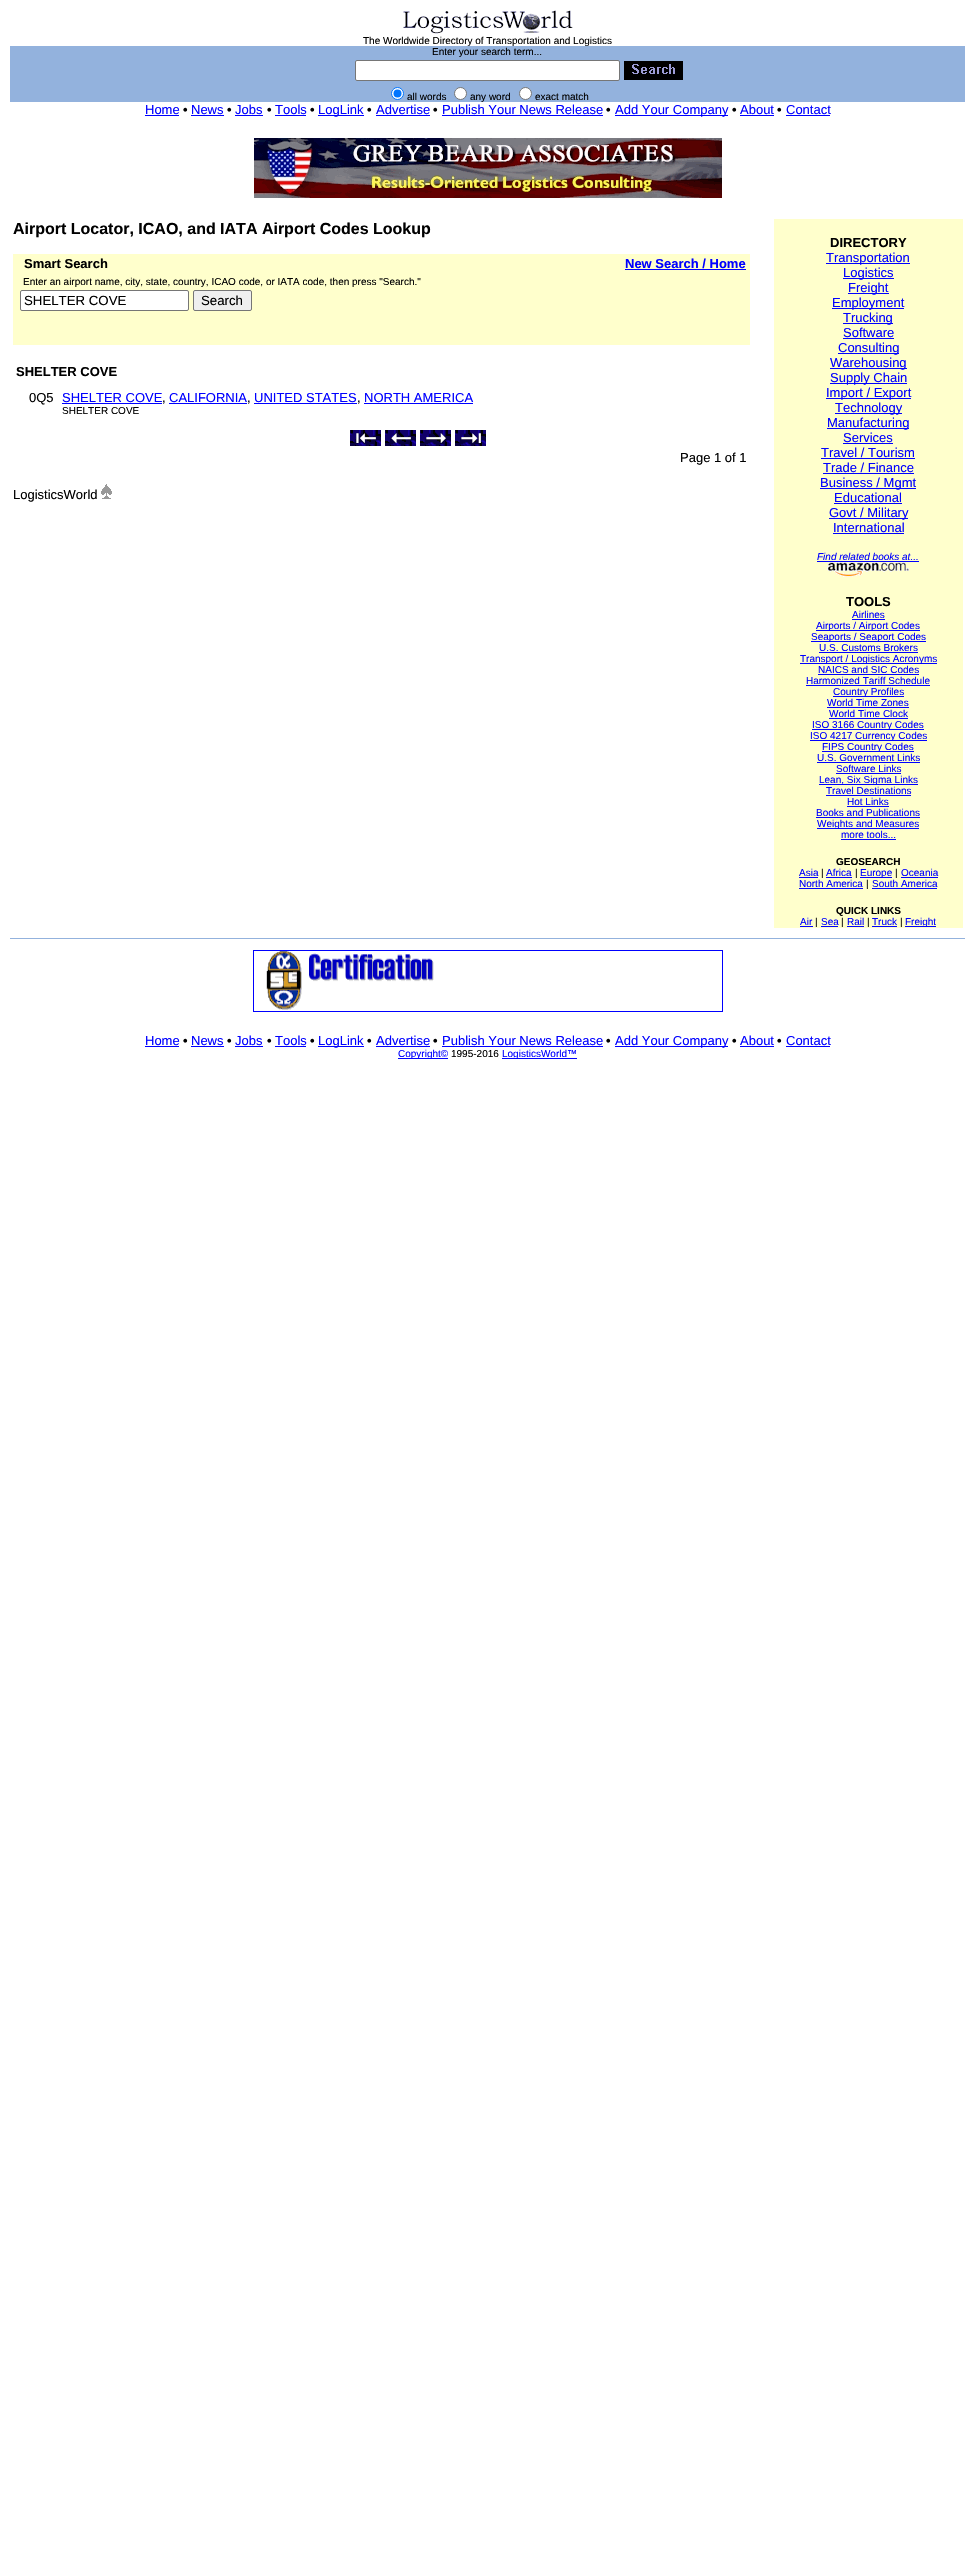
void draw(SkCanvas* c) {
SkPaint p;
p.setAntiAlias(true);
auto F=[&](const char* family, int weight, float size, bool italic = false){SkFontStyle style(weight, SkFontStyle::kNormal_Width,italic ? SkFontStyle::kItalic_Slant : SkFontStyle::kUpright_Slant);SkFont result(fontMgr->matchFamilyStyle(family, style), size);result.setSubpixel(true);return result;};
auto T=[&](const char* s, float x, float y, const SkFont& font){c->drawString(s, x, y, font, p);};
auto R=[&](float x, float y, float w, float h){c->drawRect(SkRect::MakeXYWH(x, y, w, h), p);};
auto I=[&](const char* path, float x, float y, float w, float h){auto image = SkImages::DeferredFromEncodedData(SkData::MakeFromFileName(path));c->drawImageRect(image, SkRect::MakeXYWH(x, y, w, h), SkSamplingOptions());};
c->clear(0xffffffff);
p.setColor(0xff93b2dd);
R(10,46,955,56);
I("1.png",403,10,170,24);
auto f1 = F("Liberation Sans",400,10);
p.setColor(0xff000000);
T("The Worldwide Directory of Transportation and Logistics",363,44,f1);
T("Enter your search term...",432,55,f1);
p.setColor(0xffffffff);
c->drawRoundRect(SkRect::MakeXYWH(355.5,60.5,264,20),1.5,1.5,p);
p.setStroke(true);
p.setStrokeWidth(1);
p.setColor(0xff767676);
c->drawRoundRect(SkRect::MakeXYWH(355.5,60.5,264,20),1.5,1.5,p);
I("2.png",624,61,59,19);
p.setStroke(false);
p.setColor(0xffffffff);
c->drawCircle(397.5,93.5,6,p);
p.setStroke(true);
p.setColor(0xff0075ff);
c->drawCircle(397.5,93.5,6,p);
p.setStroke(false);
c->drawCircle(397.5,93.5,4,p);
p.setColor(0xff000000);
T("all words",407,100,f1);
p.setColor(0xffffffff);
c->drawCircle(460.5,93.5,6,p);
p.setStroke(true);
p.setColor(0xff767676);
c->drawCircle(460.5,93.5,6,p);
p.setStroke(false);
p.setColor(0xff000000);
T("any word",470,100,f1);
p.setColor(0xffffffff);
c->drawCircle(525.5,93.5,6,p);
p.setStroke(true);
p.setColor(0xff767676);
c->drawCircle(525.5,93.5,6,p);
p.setStroke(false);
p.setColor(0xff000000);
T("exact match",535,100,f1);
auto f2 = F("Liberation Sans",400,13);
p.setColor(0xff0000ff);
T("Home",145,114,f2);
R(145,115,34,1);
auto f3 = F("Liberation Sans",700,13);
p.setColor(0xff000000);
T("•",183,114,f3);
p.setColor(0xff0000ff);
T("News",191,114,f2);
R(191,115,33,1);
p.setColor(0xff000000);
T("•",227,114,f3);
p.setColor(0xff0000ff);
T("Jobs",235,114,f2);
R(235,115,28,1);
p.setColor(0xff000000);
T("•",267,114,f3);
p.setColor(0xff0000ff);
T("Tools",275,114,f2);
R(275,115,31,1);
p.setColor(0xff000000);
T("•",310,114,f3);
p.setColor(0xff0000ff);
R(318,115,46,1);
T("LogLink",318,114,f2);
p.setColor(0xff000000);
T("•",367,114,f3);
p.setColor(0xff0000ff);
T("Advertise",376,114,f2);
R(376,115,54,1);
p.setColor(0xff000000);
T("•",433,114,f3);
p.setColor(0xff0000ff);
T("Publish Your News Release",442,114,f2);
R(442,115,161,1);
p.setColor(0xff000000);
T("•",606,114,f3);
p.setColor(0xff0000ff);
R(615,115,113,1);
T("Add Your Company",615,114,f2);
p.setColor(0xff000000);
T("•",732,114,f3);
p.setColor(0xff0000ff);
T("About",740,114,f2);
R(740,115,34,1);
p.setColor(0xff000000);
T("•",777,114,f3);
p.setColor(0xff0000ff);
T("Contact",786,114,f2);
R(786,115,44,1);
I("3.png",254,138,468,60);
auto f4 = F("Liberation Sans",700,16);
p.setColor(0xff000000);
T("Airport Locator, ICAO, and IATA Airport Codes Lookup",13,234,f4);
p.setColor(0xffffffcc);
R(13,254,737,91);
p.setColor(0xff000000);
T("Smart Search",24,268,f3);
p.setColor(0xff0000ff);
T("New Search / Home",625,268,f3);
R(625,269,121,1);
p.setColor(0xff000000);
T("Enter an airport name, city, state, country, ICAO code, or IATA code, then press \"Search.\"",23,285,f1);
p.setColor(0xffffffff);
c->drawRoundRect(SkRect::MakeXYWH(20.5,290.5,168,20),1.5,1.5,p);
p.setStroke(true);
p.setColor(0xff767676);
c->drawRoundRect(SkRect::MakeXYWH(20.5,290.5,168,20),1.5,1.5,p);
auto f5 = F("Liberation Sans",400,13.25);
p.setStroke(false);
p.setColor(0xff000000);
T("SHELTER COVE",24,305,f5);
p.setColor(0xffefefef);
c->drawRoundRect(SkRect::MakeXYWH(193.5,290.5,58,20),1.5,1.5,p);
p.setStroke(true);
p.setColor(0xff767676);
c->drawRoundRect(SkRect::MakeXYWH(193.5,290.5,58,20),1.5,1.5,p);
p.setStroke(false);
p.setColor(0xff000000);
T("Search",201,305,f5);
T("SHELTER COVE",16,376,f3);
T("0Q5",29,402,f2);
p.setColor(0xff0000ff);
T("SHELTER COVE",62,402,f2);
p.setColor(0xff000000);
T(",",162,402,f2);
p.setColor(0xff0000ff);
R(62,403,100,1);
T("CALIFORNIA",169,402,f2);
p.setColor(0xff000000);
T(",",247,402,f2);
p.setColor(0xff0000ff);
R(169,403,78,1);
T("UNITED STATES",254,402,f2);
p.setColor(0xff000000);
T(",",357,402,f2);
p.setColor(0xff0000ff);
R(254,403,103,1);
R(364,403,109,1);
T("NORTH AMERICA",364,402,f2);
p.setColor(0xff000000);
T("SHELTER COVE",62,414,f1);
I("4.png",350,430,31,16);
I("5.png",385,430,31,16);
I("6.png",420,430,31,16);
I("7.png",455,430,31,16);
T("Page 1 of 1",680,462,f2);
T("LogisticsWorld",13,499,f2);
I("8.png",101,484,11,15);
p.setColor(0xffffffcc);
R(774,219,189,709);
p.setColor(0xff000000);
T("DIRECTORY",830,247,f3);
p.setColor(0xff0000ff);
R(826,263,84,1);
T("Transportation",826,262,f2);
R(843,278,51,1);
T("Logistics",843,277,f2);
R(848,293,41,1);
T("Freight",848,292,f2);
R(832,308,72,1);
T("Employment",832,307,f2);
R(843,323,50,1);
T("Trucking",843,322,f2);
T("Software",843,337,f2);
R(843,338,51,1);
R(838,353,61,1);
T("Consulting",838,352,f2);
R(830,368,77,1);
T("Warehousing",830,367,f2);
R(830,383,77,1);
T("Supply Chain",830,382,f2);
R(826,398,85,1);
T("Import / Export",826,397,f2);
R(835,413,67,1);
T("Technology",835,412,f2);
R(827,428,82,1);
T("Manufacturing",827,427,f2);
T("Services",843,442,f2);
R(843,443,50,1);
T("Travel / Tourism",821,457,f2);
R(821,458,94,1);
T("Trade / Finance",823,472,f2);
R(823,473,91,1);
R(820,488,96,1);
T("Business / Mgmt",820,487,f2);
T("Educational",834,502,f2);
R(834,503,68,1);
R(829,518,79,1);
T("Govt / Military",829,517,f2);
T("International",833,532,f2);
R(833,533,71,1);
auto f6 = F("Liberation Sans",400,10,true);
T("Find related books at...",817,560,f6);
R(817,561,102,1);
I("9.png",827,562,82,15);
p.setColor(0xff000000);
T("TOOLS",846,606,f3);
p.setColor(0xff0000ff);
T("Airlines",852,618,f1);
R(852,619,33,1);
R(816,630,104,1);
T("Airports / Airport Codes",816,629,f1);
R(811,641,115,1);
T("Seaports / Seaport Codes",811,640,f1);
T("U.S. Customs Brokers",819,651,f1);
R(819,652,99,1);
R(800,663,137,1);
T("Transport / Logistics Acronyms",800,662,f1);
T("NAICS and SIC Codes",818,673,f1);
R(818,674,101,1);
T("Harmonized Tariff Schedule",806,684,f1);
R(806,685,124,1);
R(833,696,71,1);
T("Country Profiles",833,695,f1);
T("World Time Zones",827,706,f1);
R(827,707,82,1);
T("World Time Clock",829,717,f1);
R(829,718,79,1);
R(812,729,112,1);
T("ISO 3166 Country Codes",812,728,f1);
R(810,740,117,1);
T("ISO 4217 Currency Codes",810,739,f1);
R(822,751,92,1);
T("FIPS Country Codes",822,750,f1);
T("U.S. Government Links",817,761,f1);
R(817,762,103,1);
T("Software Links",836,772,f1);
R(836,773,65,1);
R(819,784,99,1);
T("Lean, Six Sigma Links",819,783,f1);
T("Travel Destinations",826,794,f1);
R(826,795,85,1);
T("Hot Links",847,805,f1);
R(847,806,42,1);
T("Books and Publications",816,816,f1);
R(816,817,104,1);
R(817,828,102,1);
T("Weights and Measures",817,827,f1);
T("more tools...",841,838,f1);
R(841,839,55,1);
auto f7 = F("Liberation Sans",700,10);
p.setColor(0xff000000);
T("GEOSEARCH",836,865,f7);
p.setColor(0xff0000ff);
T("Asia",799,876,f1);
R(799,877,19,1);
p.setColor(0xff000000);
T("|",821,876,f1);
p.setColor(0xff0000ff);
T("Africa",826,876,f1);
R(826,877,26,1);
p.setColor(0xff000000);
T("|",855,876,f1);
p.setColor(0xff0000ff);
R(860,877,32,1);
T("Europe",860,876,f1);
p.setColor(0xff000000);
T("|",895,876,f1);
p.setColor(0xff0000ff);
T("Oceania",901,876,f1);
R(901,877,37,1);
T("North America",799,887,f1);
R(799,888,64,1);
p.setColor(0xff000000);
T("|",866,887,f1);
p.setColor(0xff0000ff);
T("South America",872,887,f1);
R(872,888,65,1);
p.setColor(0xff000000);
T("QUICK LINKS",836,914,f7);
p.setColor(0xff0000ff);
T("Air",800,925,f1);
R(800,926,13,1);
p.setColor(0xff000000);
T("|",815,925,f1);
p.setColor(0xff0000ff);
T("Sea",821,925,f1);
R(821,926,17,1);
p.setColor(0xff000000);
T("|",841,925,f1);
p.setColor(0xff0000ff);
T("Rail",847,925,f1);
R(847,926,17,1);
p.setColor(0xff000000);
T("|",867,925,f1);
p.setColor(0xff0000ff);
T("Truck",872,925,f1);
R(872,926,25,1);
p.setColor(0xff000000);
T("|",900,925,f1);
p.setColor(0xff0000ff);
R(905,926,31,1);
T("Freight",905,925,f1);
p.setColor(0xff93b2dd);
R(10,938,955,1);
p.setStroke(true);
p.setColor(0xff0000ff);
c->drawRect(SkRect::MakeXYWH(253.5,950.5,469,61),p);
I("10.png",266,951,168,59);
p.setStroke(false);
T("Home",145,1045,f2);
R(145,1046,34,1);
p.setColor(0xff000000);
T("•",183,1045,f3);
p.setColor(0xff0000ff);
T("News",191,1045,f2);
R(191,1046,33,1);
p.setColor(0xff000000);
T("•",227,1045,f3);
p.setColor(0xff0000ff);
T("Jobs",235,1045,f2);
R(235,1046,28,1);
p.setColor(0xff000000);
T("•",267,1045,f3);
p.setColor(0xff0000ff);
T("Tools",275,1045,f2);
R(275,1046,31,1);
p.setColor(0xff000000);
T("•",310,1045,f3);
p.setColor(0xff0000ff);
R(318,1046,46,1);
T("LogLink",318,1045,f2);
p.setColor(0xff000000);
T("•",367,1045,f3);
p.setColor(0xff0000ff);
T("Advertise",376,1045,f2);
R(376,1046,54,1);
p.setColor(0xff000000);
T("•",433,1045,f3);
p.setColor(0xff0000ff);
T("Publish Your News Release",442,1045,f2);
R(442,1046,161,1);
p.setColor(0xff000000);
T("•",606,1045,f3);
p.setColor(0xff0000ff);
R(615,1046,113,1);
T("Add Your Company",615,1045,f2);
p.setColor(0xff000000);
T("•",732,1045,f3);
p.setColor(0xff0000ff);
T("About",740,1045,f2);
R(740,1046,34,1);
p.setColor(0xff000000);
T("•",777,1045,f3);
p.setColor(0xff0000ff);
T("Contact",786,1045,f2);
R(786,1046,44,1);
R(398,1058,50,1);
T("Copyright©",398,1057,f1);
p.setColor(0xff000000);
T("1995-2016",451,1057,f1);
p.setColor(0xff0000ff);
R(502,1058,75,1);
T("LogisticsWorld™",502,1057,f1);
}
